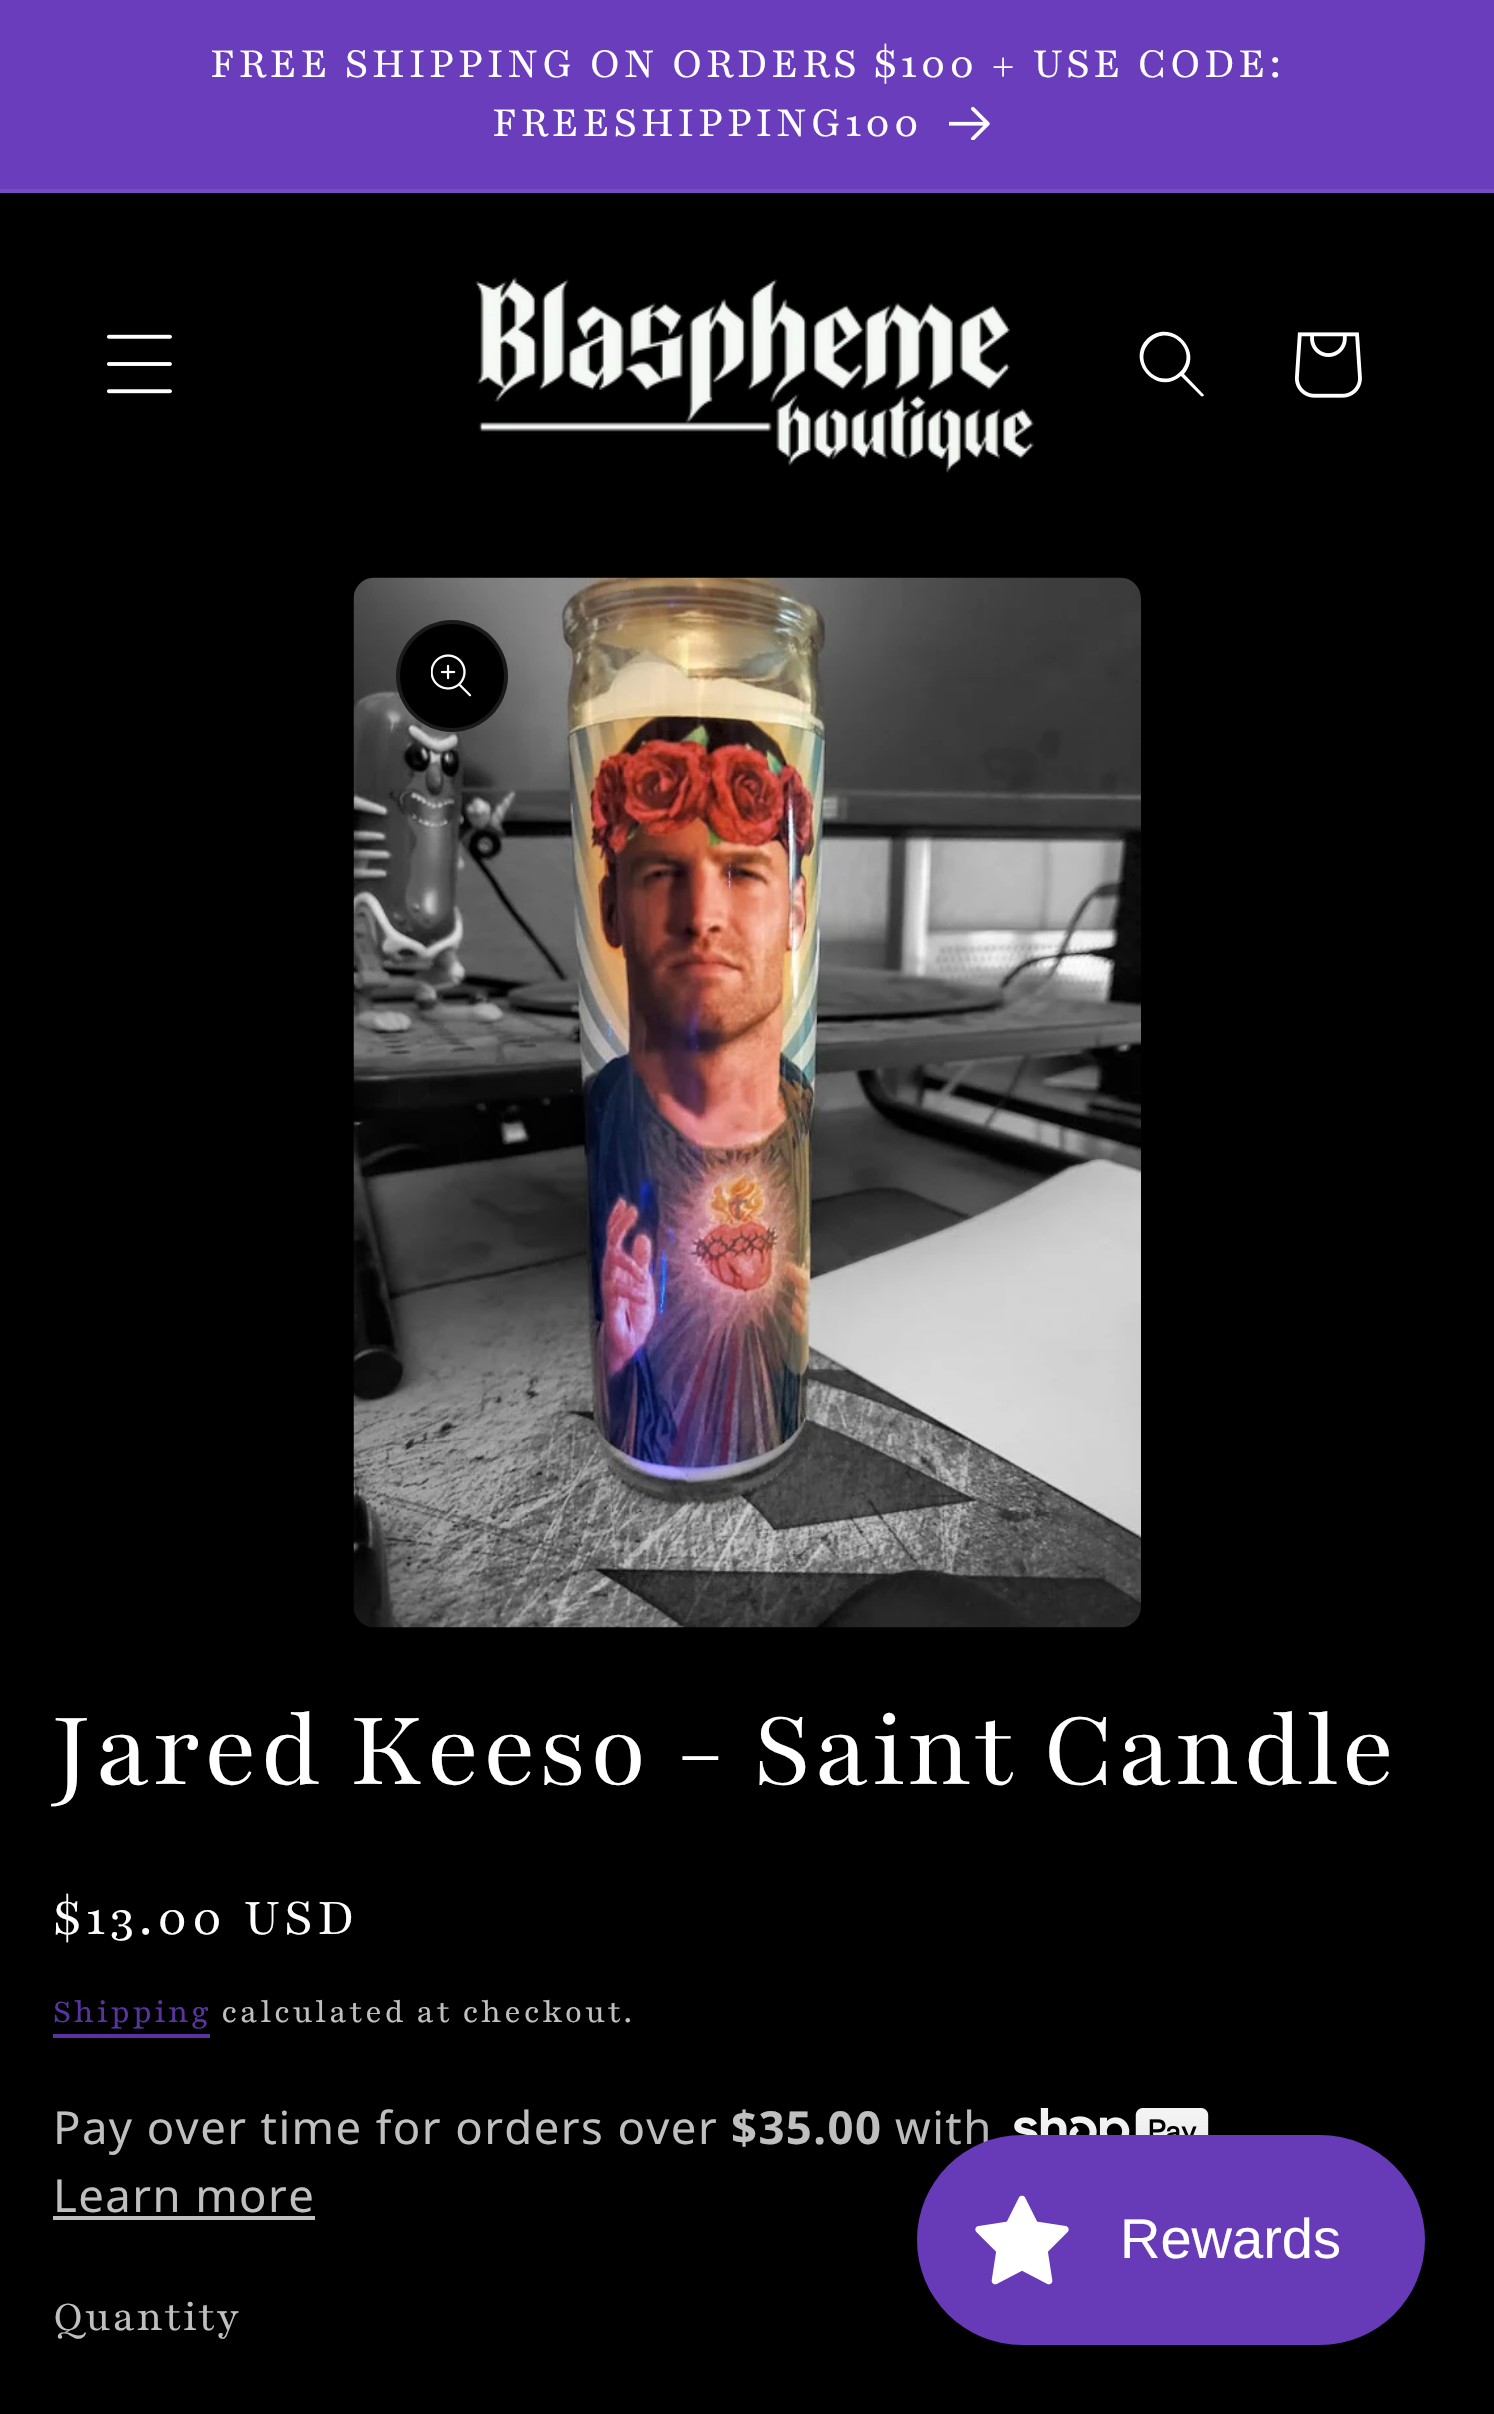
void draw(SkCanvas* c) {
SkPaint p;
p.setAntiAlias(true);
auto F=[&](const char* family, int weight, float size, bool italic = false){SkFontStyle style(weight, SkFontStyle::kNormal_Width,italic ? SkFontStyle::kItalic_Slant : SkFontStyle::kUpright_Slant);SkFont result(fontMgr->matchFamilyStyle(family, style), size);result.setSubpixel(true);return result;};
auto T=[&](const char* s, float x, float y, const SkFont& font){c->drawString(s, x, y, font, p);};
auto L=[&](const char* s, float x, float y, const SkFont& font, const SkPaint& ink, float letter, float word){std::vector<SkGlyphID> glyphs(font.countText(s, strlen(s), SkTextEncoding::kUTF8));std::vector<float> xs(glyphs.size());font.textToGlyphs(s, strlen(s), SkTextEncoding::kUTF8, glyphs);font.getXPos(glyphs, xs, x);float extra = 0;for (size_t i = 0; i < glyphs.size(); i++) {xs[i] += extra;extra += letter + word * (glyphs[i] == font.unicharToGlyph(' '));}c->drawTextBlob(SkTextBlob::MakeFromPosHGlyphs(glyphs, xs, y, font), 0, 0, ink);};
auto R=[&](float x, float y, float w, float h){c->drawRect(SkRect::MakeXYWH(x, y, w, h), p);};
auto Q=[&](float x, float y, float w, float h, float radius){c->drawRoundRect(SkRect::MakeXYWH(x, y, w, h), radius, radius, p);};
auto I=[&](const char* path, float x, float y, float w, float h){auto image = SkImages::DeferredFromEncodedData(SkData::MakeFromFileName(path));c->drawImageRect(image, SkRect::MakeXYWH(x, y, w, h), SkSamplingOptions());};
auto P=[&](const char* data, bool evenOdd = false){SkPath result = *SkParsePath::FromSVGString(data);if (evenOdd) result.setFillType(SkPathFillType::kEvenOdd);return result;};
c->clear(0xff000000);
p.setColor(0xff693dbc);
R(0,0,1494,189);
p.setColor(0xff754dc1);
R(0,189,1494,4);
auto f1 = F("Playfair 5",400,46.2);
p.setColor(0xffffffff);
L("FREE SHIPPING ON ORDERS $100 + USE CODE:",210,77,f1,p,3.5,0);
L("FREESHIPPING100",492,136,f1,p,3.5,0);
I("1.png",949,106,41,34);
I("2.png",107,334,65,60);
I("3.png",475,277,559,196);
c->drawPath(P("M1180 372c-20 20-50-10-30-30c20-20 50 10 30 30m1 4c-24 21-56-15-34-37c23-22 58 11 37 35l20 21c0 1-2 2-3 1z",true),p);
I("4.png",1295,332,67,66);
I("5.png",353,577,788,1051);
p.setColor(0xff000000);
c->drawCircle(452,676,56,p);
p.setStroke(true);
p.setStrokeWidth(4);
p.setColor(0x1affffff);
c->drawCircle(452,676,54,p);
I("6.png",431,654,41,43);
auto f2 = F("Playfair",400,115.5);
p.setStroke(false);
p.setColor(0xffffffff);
L("Jared Keeso - Saint Candle",53,1784,f2,p,2.3,0);
auto f3 = F("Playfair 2",400,56);
L("$13.00 USD",53,1934,f3,p,4.5,0);
auto f4 = F("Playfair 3",400,35);
p.setColor(0xff5934a0);
L("Shipping",53,2022,f4,p,2.45,0);
R(53,2034,157,4);
p.setColor(0xffbfbfbf);
L("calculated at checkout.",221,2022,f4,p,2.45,0);
auto f5 = F("Noto Sans",400,45.5);
L("Pay over time for orders over",53,2144,f5,p,1.4,0);
auto f6 = F("Noto Sans",700,45.5);
L("$35.00",731,2144,f6,p,1.4,0);
L("with",895,2144,f5,p,1.4,0);
I("7.png",1014,2108,195,27);
L("Learn more",53,2212,f5,p,1.4,0);
R(53,2216,262,4);
auto f7 = F("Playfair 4",400,45.5);
L("Quantity",53,2330,f7,p,1.4,0);
p.setColor(0x26000000);
p.setMaskFilter(SkMaskFilter::MakeBlur(kNormal_SkBlurStyle, 52.5));
c->drawRoundRect(SkRect::MakeXYWH(917,2142,508,210),105,105,p);
p.setMaskFilter(nullptr);
p.setColor(0xff673ab7);
Q(917,2135,508,210,105);
I("8.png",975,2195,94,90);
auto f8 = F("Liberation Sans",400,56);
p.setColor(0xffffffff);
T("Rewards",1120,2258,f8);
}
